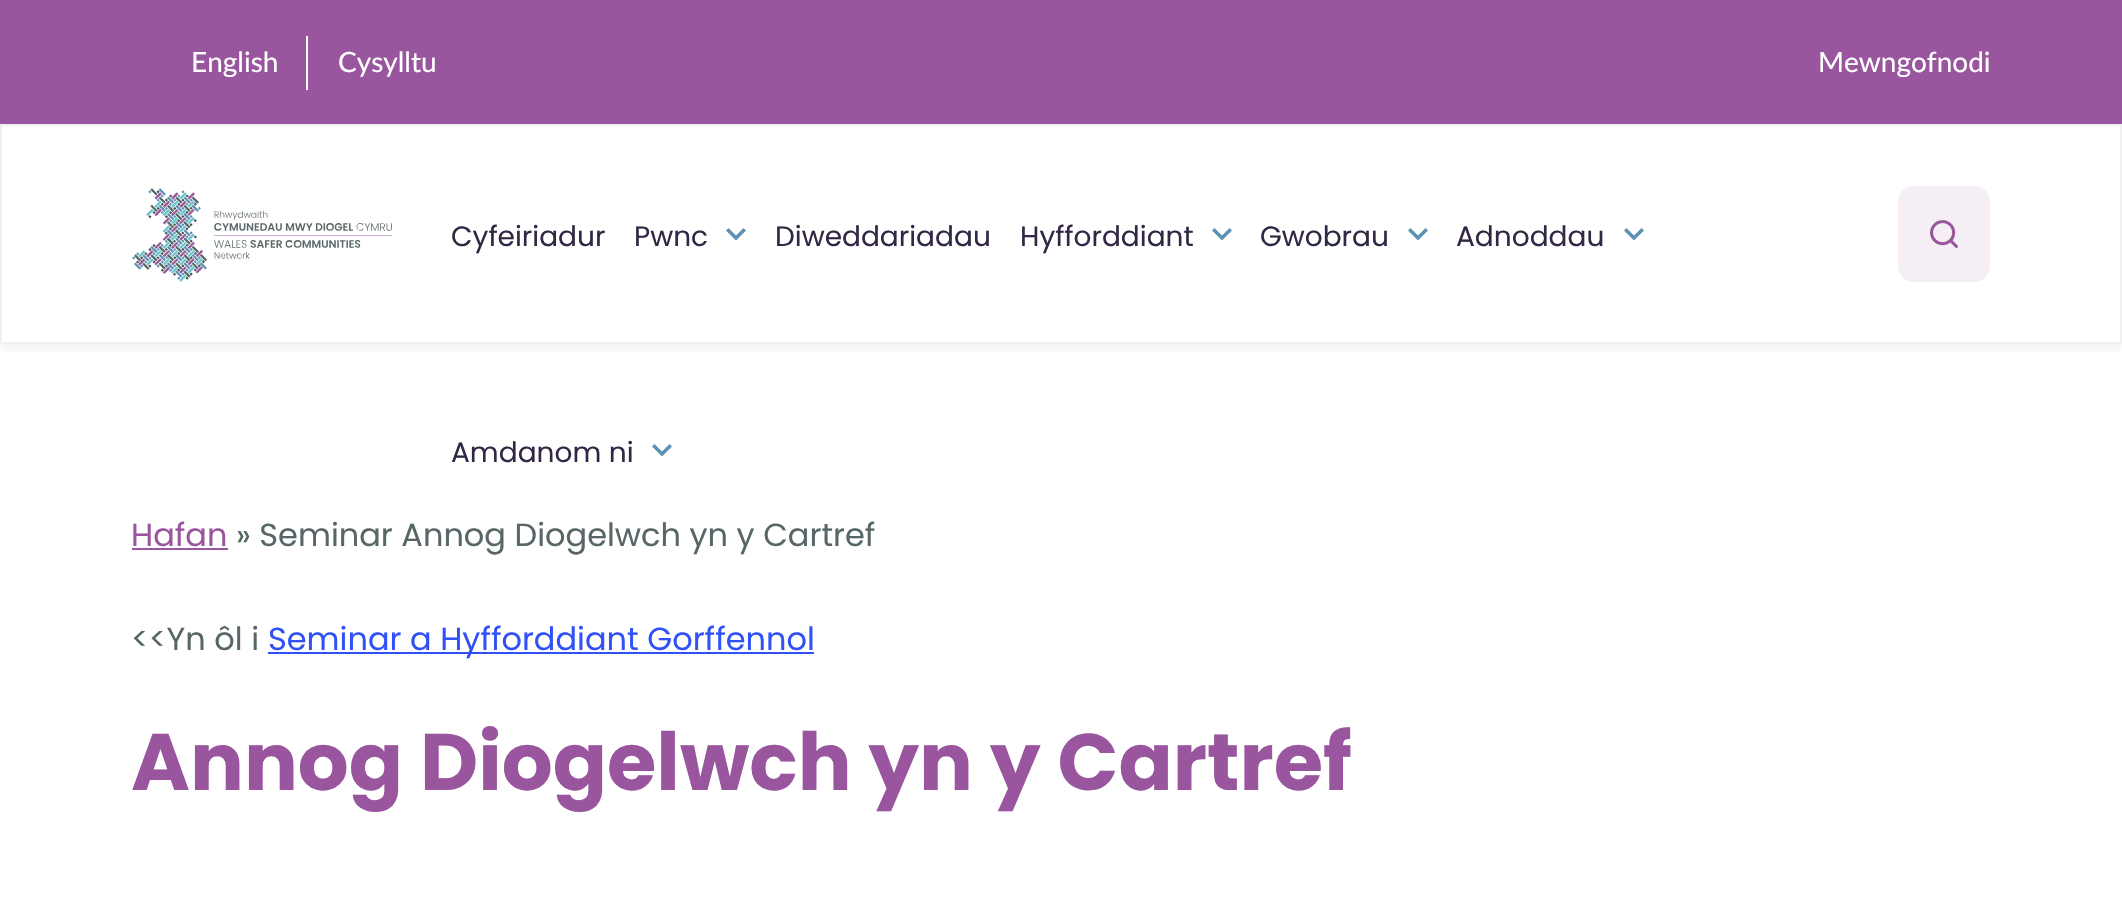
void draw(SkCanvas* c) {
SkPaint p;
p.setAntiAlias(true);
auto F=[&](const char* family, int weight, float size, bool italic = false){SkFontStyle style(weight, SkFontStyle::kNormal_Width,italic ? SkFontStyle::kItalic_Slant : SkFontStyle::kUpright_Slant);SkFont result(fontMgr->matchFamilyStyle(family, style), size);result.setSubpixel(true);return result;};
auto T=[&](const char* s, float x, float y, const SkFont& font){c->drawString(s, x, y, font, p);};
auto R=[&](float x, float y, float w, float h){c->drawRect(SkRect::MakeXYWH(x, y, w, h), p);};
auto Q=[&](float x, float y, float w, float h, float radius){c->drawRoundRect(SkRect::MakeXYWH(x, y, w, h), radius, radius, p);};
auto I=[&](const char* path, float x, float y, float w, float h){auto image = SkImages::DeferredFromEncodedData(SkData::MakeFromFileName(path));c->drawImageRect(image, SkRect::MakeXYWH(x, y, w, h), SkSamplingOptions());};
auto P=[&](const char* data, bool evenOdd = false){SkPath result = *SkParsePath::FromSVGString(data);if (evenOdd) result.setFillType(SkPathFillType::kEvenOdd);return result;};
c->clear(0xffffffff);
p.setColor(0xff99569e);
R(0,0,2122,124);
auto f1 = F("Lato",400,28);
p.setColor(0xffffffff);
T("English",191,72,f1);
R(306,36,2,54);
T("Cysylltu",338,72,f1);
T("Mewngofnodi",1818,72,f1);
c->save();
c->clipRect(SkRect::MakeXYWH(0,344,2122,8));
p.setColor(0x0d000000);
p.setMaskFilter(SkMaskFilter::MakeBlur(kNormal_SkBlurStyle, 6));
c->drawRect(SkRect::MakeXYWH(0,130,2122,220),p);
p.setMaskFilter(nullptr);
c->restore();
p.setStroke(true);
p.setStrokeWidth(2);
p.setColor(0xfff0f0f0);
c->drawRect(SkRect::MakeXYWH(1,125,2120,218),p);
I("1.png",132,188,260,94);
auto f2 = F("Poppins",400,28);
p.setStroke(false);
p.setColor(0xff322744);
T("Cyfeiriadur",451,246,f2);
T("Pwnc",634,246,f2);
p.setColor(0xff5c93b4);
c->drawPath(P("M728.5 228l7.5 7.5l7.5-7.5l2.5 2.5l-10 10l-10-10z"),p);
p.setColor(0xff322744);
T("Diweddariadau",775,246,f2);
T("Hyfforddiant",1020,246,f2);
p.setColor(0xff5c93b4);
c->drawPath(P("M1214.5 228l7.5 7.5l7.5-7.5l2.5 2.5l-10 10l-10-10z"),p);
p.setColor(0xff322744);
T("Gwobrau",1260,246,f2);
p.setColor(0xff5c93b4);
c->drawPath(P("M1410.5 228l7.5 7.5l7.5-7.5l2.5 2.5l-10 10l-10-10z"),p);
p.setColor(0xff322744);
T("Adnoddau",1456,246,f2);
p.setColor(0xff5c93b4);
c->drawPath(P("M1626.5 228l7.5 7.5l7.5-7.5l2.5 2.5l-10 10l-10-10z"),p);
p.setColor(0xff322744);
T("Amdanom ni",451,462,f2);
p.setColor(0xff5c93b4);
c->drawPath(P("M654.5 444l7.5 7.5l7.5-7.5l2.5 2.5l-10 10l-10-10z"),p);
p.setColor(0xfff5eef5);
Q(1898,186,92,96,16);
I("2.png",1930,220,28,28);
auto f3 = F("Poppins",400,32);
p.setColor(0xff99569e);
T("Hafan",131,546,f3);
R(132,548,96,2);
p.setColor(0xff576666);
T("» Seminar Annog Diogelwch yn y Cartref",236,546,f3);
T("<<Yn ôl i",131,650,f3);
p.setColor(0xff3151f8);
R(268,652,546,2);
T("Seminar a Hyfforddiant Gorffennol",268,650,f3);
auto f4 = F("Poppins",700,80);
p.setColor(0xff99569e);
T("Annog Diogelwch yn y Cartref",131,790,f4);
}
